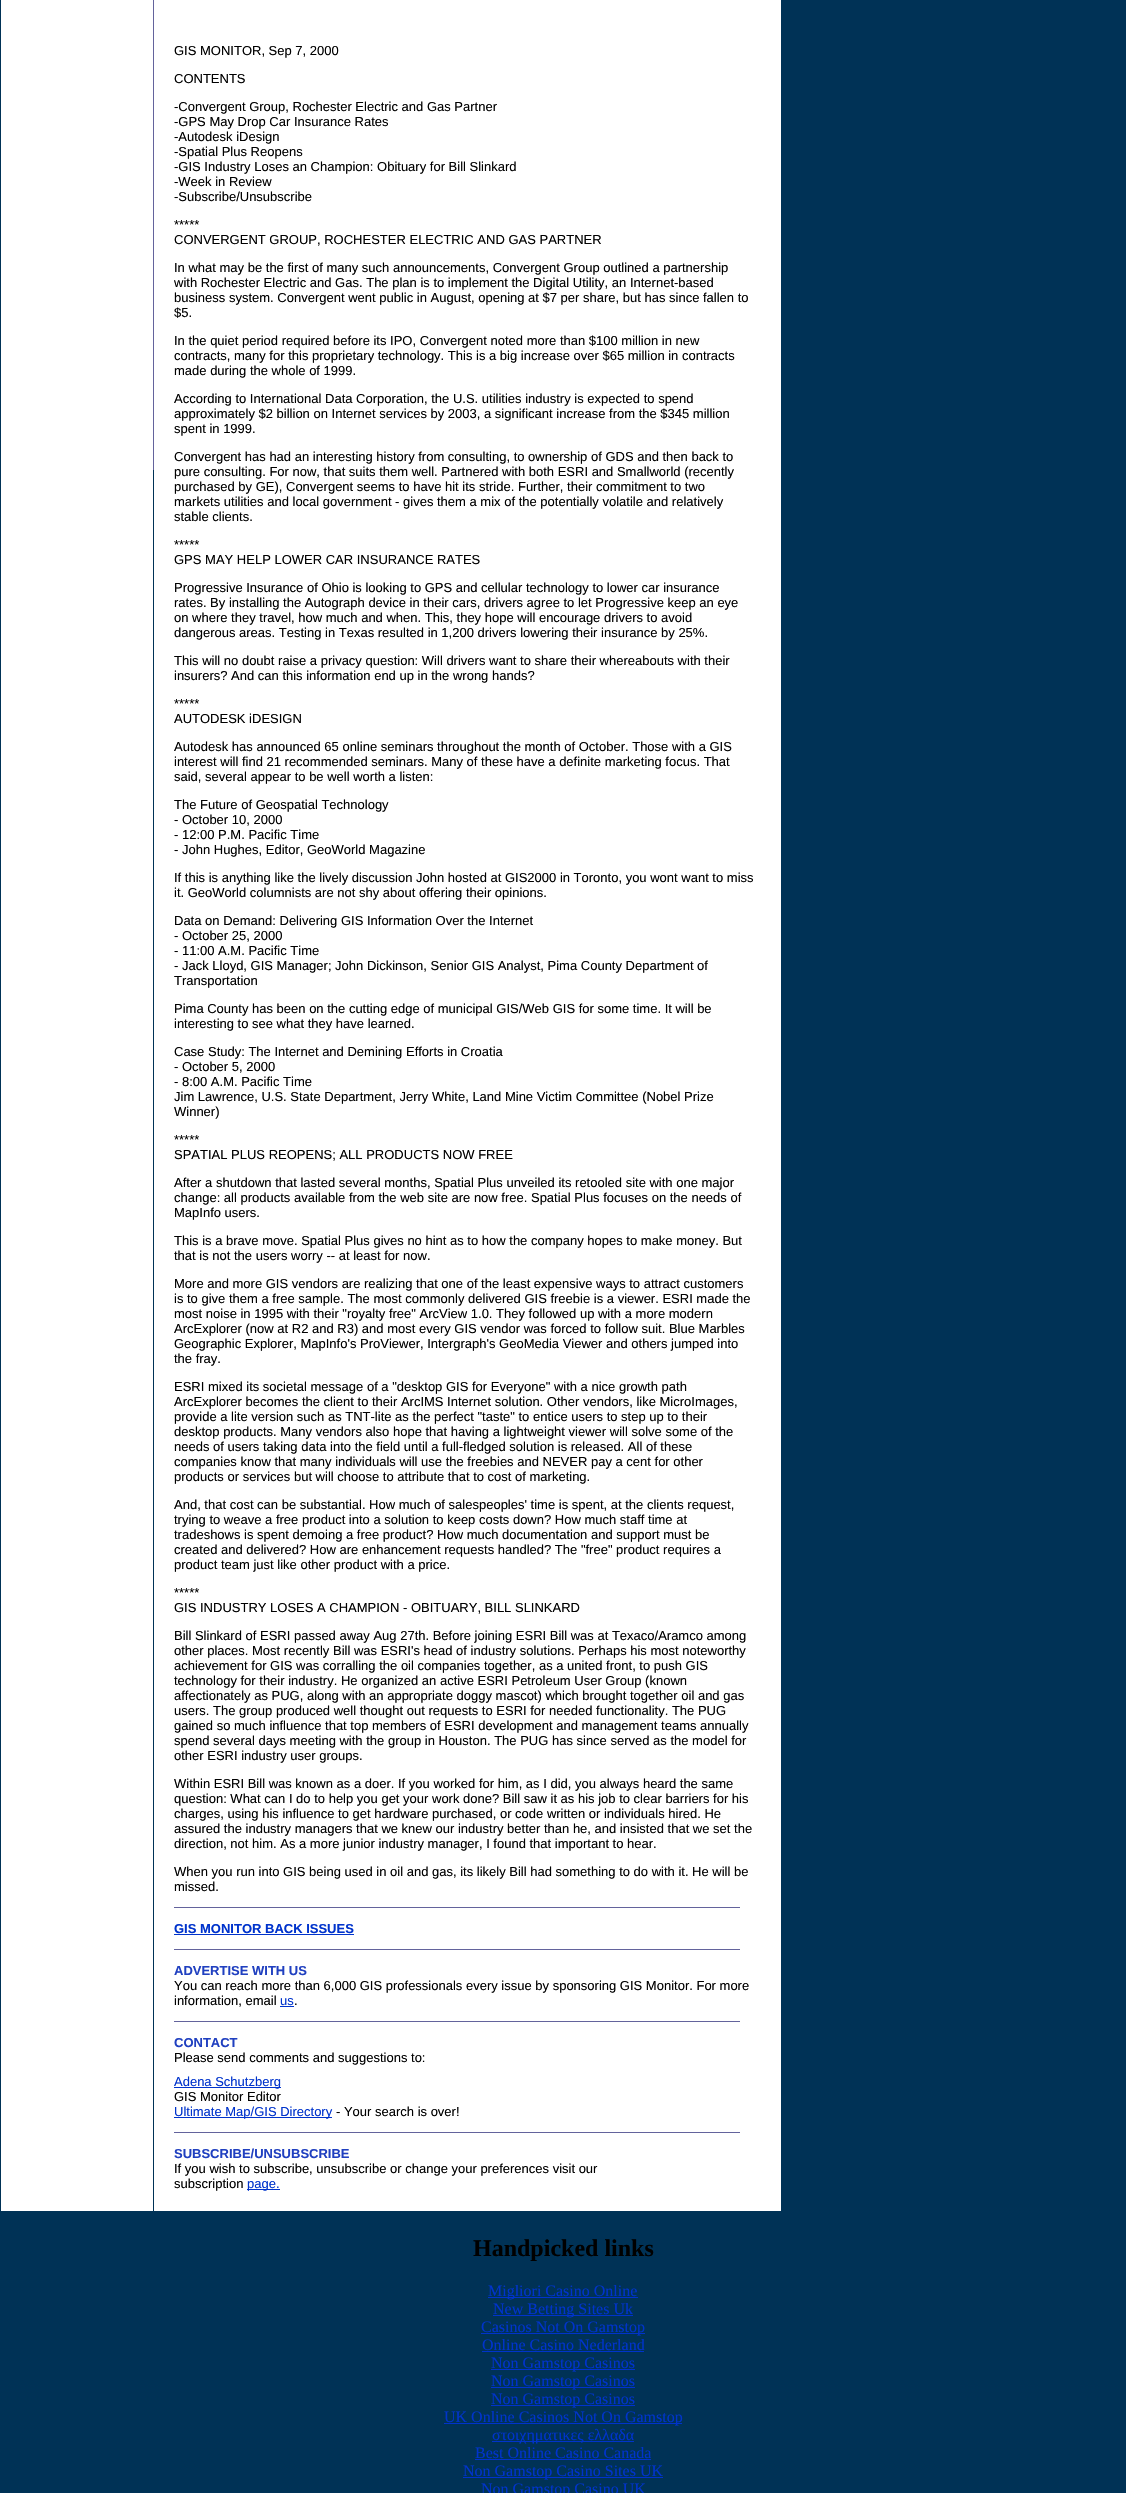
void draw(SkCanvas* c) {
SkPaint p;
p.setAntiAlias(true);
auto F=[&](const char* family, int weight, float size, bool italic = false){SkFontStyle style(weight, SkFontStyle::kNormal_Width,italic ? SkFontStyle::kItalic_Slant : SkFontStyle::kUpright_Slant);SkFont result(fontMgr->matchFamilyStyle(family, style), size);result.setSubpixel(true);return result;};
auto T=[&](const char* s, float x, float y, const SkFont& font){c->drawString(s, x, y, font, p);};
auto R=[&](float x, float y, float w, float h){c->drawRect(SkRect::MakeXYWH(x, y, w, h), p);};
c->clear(0xff003256);
p.setColor(0xffffffff);
R(1,0,152,2211);
p.setColor(0xff63639c);
R(153,0,1,470);
p.setColor(0xffffffff);
R(154,0,627,2211);
auto f1 = F("Liberation Sans",400,13);
p.setColor(0xff000000);
T("GIS MONITOR, Sep 7, 2000",174,55,f1);
T("CONTENTS",174,83,f1);
T("-Convergent Group, Rochester Electric and Gas Partner",174,111,f1);
T("-GPS May Drop Car Insurance Rates",174,126,f1);
T("-Autodesk iDesign",174,141,f1);
T("-Spatial Plus Reopens",174,156,f1);
T("-GIS Industry Loses an Champion: Obituary for Bill Slinkard",174,171,f1);
T("-Week in Review",174,186,f1);
T("-Subscribe/Unsubscribe",174,201,f1);
T("*****",174,229,f1);
T("CONVERGENT GROUP, ROCHESTER ELECTRIC AND GAS PARTNER",174,244,f1);
T("In what may be the first of many such announcements, Convergent Group outlined a partnership",174,272,f1);
T("with Rochester Electric and Gas. The plan is to implement the Digital Utility, an Internet-based",174,287,f1);
T("business system. Convergent went public in August, opening at $7 per share, but has since fallen to",174,302,f1);
T("$5.",174,317,f1);
T("In the quiet period required before its IPO, Convergent noted more than $100 million in new",174,345,f1);
T("contracts, many for this proprietary technology. This is a big increase over $65 million in contracts",174,360,f1);
T("made during the whole of 1999.",174,375,f1);
T("According to International Data Corporation, the U.S. utilities industry is expected to spend",174,403,f1);
T("approximately $2 billion on Internet services by 2003, a significant increase from the $345 million",174,418,f1);
T("spent in 1999.",174,433,f1);
T("Convergent has had an interesting history from consulting, to ownership of GDS and then back to",174,461,f1);
T("pure consulting. For now, that suits them well. Partnered with both ESRI and Smallworld (recently",174,476,f1);
T("purchased by GE), Convergent seems to have hit its stride. Further, their commitment to two",174,491,f1);
T("markets utilities and local government - gives them a mix of the potentially volatile and relatively",174,506,f1);
T("stable clients.",174,521,f1);
T("*****",174,549,f1);
T("GPS MAY HELP LOWER CAR INSURANCE RATES",174,564,f1);
T("Progressive Insurance of Ohio is looking to GPS and cellular technology to lower car insurance",174,592,f1);
T("rates. By installing the Autograph device in their cars, drivers agree to let Progressive keep an eye",174,607,f1);
T("on where they travel, how much and when. This, they hope will encourage drivers to avoid",174,622,f1);
T("dangerous areas. Testing in Texas resulted in 1,200 drivers lowering their insurance by 25%.",174,637,f1);
T("This will no doubt raise a privacy question: Will drivers want to share their whereabouts with their",174,665,f1);
T("insurers? And can this information end up in the wrong hands?",174,680,f1);
T("*****",174,708,f1);
T("AUTODESK iDESIGN",174,723,f1);
T("Autodesk has announced 65 online seminars throughout the month of October. Those with a GIS",174,751,f1);
T("interest will find 21 recommended seminars. Many of these have a definite marketing focus. That",174,766,f1);
T("said, several appear to be well worth a listen:",174,781,f1);
T("The Future of Geospatial Technology",174,809,f1);
T("- October 10, 2000",174,824,f1);
T("- 12:00 P.M. Pacific Time",174,839,f1);
T("- John Hughes, Editor, GeoWorld Magazine",174,854,f1);
T("If this is anything like the lively discussion John hosted at GIS2000 in Toronto, you wont want to miss",174,882,f1);
T("it. GeoWorld columnists are not shy about offering their opinions.",174,897,f1);
T("Data on Demand: Delivering GIS Information Over the Internet",174,925,f1);
T("- October 25, 2000",174,940,f1);
T("- 11:00 A.M. Pacific Time",174,955,f1);
T("- Jack Lloyd, GIS Manager; John Dickinson, Senior GIS Analyst, Pima County Department of",174,970,f1);
T("Transportation",174,985,f1);
T("Pima County has been on the cutting edge of municipal GIS/Web GIS for some time. It will be",174,1013,f1);
T("interesting to see what they have learned.",174,1028,f1);
T("Case Study: The Internet and Demining Efforts in Croatia",174,1056,f1);
T("- October 5, 2000",174,1071,f1);
T("- 8:00 A.M. Pacific Time",174,1086,f1);
T("Jim Lawrence, U.S. State Department, Jerry White, Land Mine Victim Committee (Nobel Prize",174,1101,f1);
T("Winner)",174,1116,f1);
T("*****",174,1144,f1);
T("SPATIAL PLUS REOPENS; ALL PRODUCTS NOW FREE",174,1159,f1);
T("After a shutdown that lasted several months, Spatial Plus unveiled its retooled site with one major",174,1187,f1);
T("change: all products available from the web site are now free. Spatial Plus focuses on the needs of",174,1202,f1);
T("MapInfo users.",174,1217,f1);
T("This is a brave move. Spatial Plus gives no hint as to how the company hopes to make money. But",174,1245,f1);
T("that is not the users worry -- at least for now.",174,1260,f1);
T("More and more GIS vendors are realizing that one of the least expensive ways to attract customers",174,1288,f1);
T("is to give them a free sample. The most commonly delivered GIS freebie is a viewer. ESRI made the",174,1303,f1);
T("most noise in 1995 with their \"royalty free\" ArcView 1.0. They followed up with a more modern",174,1318,f1);
T("ArcExplorer (now at R2 and R3) and most every GIS vendor was forced to follow suit. Blue Marbles",174,1333,f1);
T("Geographic Explorer, MapInfo's ProViewer, Intergraph's GeoMedia Viewer and others jumped into",174,1348,f1);
T("the fray.",174,1363,f1);
T("ESRI mixed its societal message of a \"desktop GIS for Everyone\" with a nice growth path",174,1391,f1);
T("ArcExplorer becomes the client to their ArcIMS Internet solution. Other vendors, like MicroImages,",174,1406,f1);
T("provide a lite version such as TNT-lite as the perfect \"taste\" to entice users to step up to their",174,1421,f1);
T("desktop products. Many vendors also hope that having a lightweight viewer will solve some of the",174,1436,f1);
T("needs of users taking data into the field until a full-fledged solution is released. All of these",174,1451,f1);
T("companies know that many individuals will use the freebies and NEVER pay a cent for other",174,1466,f1);
T("products or services but will choose to attribute that to cost of marketing.",174,1481,f1);
T("And, that cost can be substantial. How much of salespeoples' time is spent, at the clients request,",174,1509,f1);
T("trying to weave a free product into a solution to keep costs down? How much staff time at",174,1524,f1);
T("tradeshows is spent demoing a free product? How much documentation and support must be",174,1539,f1);
T("created and delivered? How are enhancement requests handled? The \"free\" product requires a",174,1554,f1);
T("product team just like other product with a price.",174,1569,f1);
T("*****",174,1597,f1);
T("GIS INDUSTRY LOSES A CHAMPION - OBITUARY, BILL SLINKARD",174,1612,f1);
T("Bill Slinkard of ESRI passed away Aug 27th. Before joining ESRI Bill was at Texaco/Aramco among",174,1640,f1);
T("other places. Most recently Bill was ESRI's head of industry solutions. Perhaps his most noteworthy",174,1655,f1);
T("achievement for GIS was corralling the oil companies together, as a united front, to push GIS",174,1670,f1);
T("technology for their industry. He organized an active ESRI Petroleum User Group (known",174,1685,f1);
T("affectionately as PUG, along with an appropriate doggy mascot) which brought together oil and gas",174,1700,f1);
T("users. The group produced well thought out requests to ESRI for needed functionality. The PUG",174,1715,f1);
T("gained so much influence that top members of ESRI development and management teams annually",174,1730,f1);
T("spend several days meeting with the group in Houston. The PUG has since served as the model for",174,1745,f1);
T("other ESRI industry user groups.",174,1760,f1);
T("Within ESRI Bill was known as a doer. If you worked for him, as I did, you always heard the same",174,1788,f1);
T("question: What can I do to help you get your work done? Bill saw it as his job to clear barriers for his",174,1803,f1);
T("charges, using his influence to get hardware purchased, or code written or individuals hired. He",174,1818,f1);
T("assured the industry managers that we knew our industry better than he, and insisted that we set the",174,1833,f1);
T("direction, not him. As a more junior industry manager, I found that important to hear.",174,1848,f1);
T("When you run into GIS being used in oil and gas, its likely Bill had something to do with it. He will be",174,1876,f1);
T("missed.",174,1891,f1);
p.setColor(0xff63639c);
R(174,1907,566,1);
auto f2 = F("Liberation Sans",700,13);
p.setColor(0xff0033cc);
T("GIS MONITOR BACK ISSUES",174,1933,f2);
R(174,1934,180,1);
p.setColor(0xff63639c);
R(174,1949,566,1);
p.setColor(0xff2040c0);
T("ADVERTISE WITH US",174,1975,f2);
p.setColor(0xff000000);
T("You can reach more than 6,000 GIS professionals every issue by sponsoring GIS Monitor. For more",174,1990,f1);
T("information, email",174,2005,f1);
p.setColor(0xff0033cc);
T("us",280,2005,f1);
p.setColor(0xff000000);
T(".",294,2005,f1);
p.setColor(0xff0033cc);
R(280,2006,14,1);
p.setColor(0xff63639c);
R(174,2021,566,1);
p.setColor(0xff2040c0);
T("CONTACT",174,2047,f2);
p.setColor(0xff000000);
T("Please send comments and suggestions to:",174,2062,f1);
p.setColor(0xff0033cc);
R(174,2087,107,1);
T("Adena Schutzberg",174,2086,f1);
p.setColor(0xff000000);
T("GIS Monitor Editor",174,2101,f1);
p.setColor(0xff0033cc);
R(174,2117,158,1);
T("Ultimate Map/GIS Directory",174,2116,f1);
p.setColor(0xff000000);
T("- Your search is over!",336,2116,f1);
p.setColor(0xff63639c);
R(174,2132,566,1);
p.setColor(0xff2040c0);
T("SUBSCRIBE/UNSUBSCRIBE",174,2158,f2);
p.setColor(0xff000000);
T("If you wish to subscribe, unsubscribe or change your preferences visit our",174,2173,f1);
T("subscription",174,2188,f1);
p.setColor(0xff0033cc);
R(247,2189,33,1);
T("page.",247,2188,f1);
auto f3 = F("Liberation Serif",700,24);
p.setColor(0xff000000);
T("Handpicked links",473,2256,f3);
p.setColor(0xff0033cc);
R(488,2297,150,1);
auto f4 = F("Liberation Serif",400,16);
T("Migliori Casino Online",488,2296,f4);
R(493,2315,140,1);
T("New Betting Sites Uk",493,2314,f4);
R(481,2333,164,1);
T("Casinos Not On Gamstop",481,2332,f4);
T("Online Casino Nederland",482,2350,f4);
R(482,2351,162,1);
R(491,2369,144,1);
T("Non Gamstop Casinos",491,2368,f4);
R(491,2387,144,1);
T("Non Gamstop Casinos",491,2386,f4);
R(491,2405,144,1);
T("Non Gamstop Casinos",491,2404,f4);
R(444,2423,238,1);
T("UK Online Casinos Not On Gamstop",444,2422,f4);
R(492,2441,142,1);
T("στοιχηματικες ελλαδα",492,2440,f4);
T("Best Online Casino Canada",475,2458,f4);
R(475,2459,176,1);
R(463,2477,200,1);
T("Non Gamstop Casino Sites UK",463,2476,f4);
T("Non Gamstop Casino UK",481,2494,f4);
}
